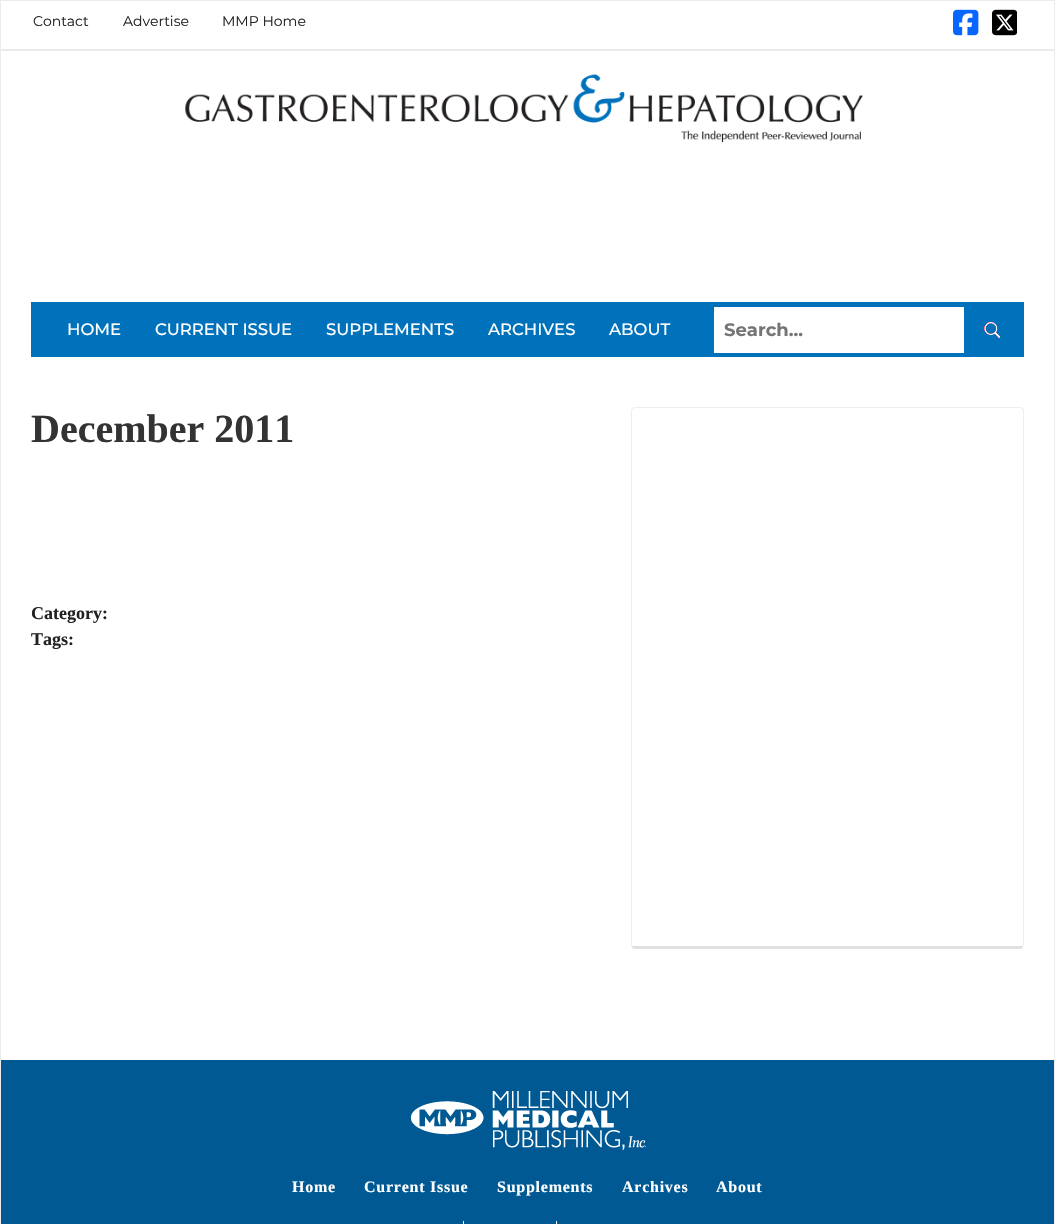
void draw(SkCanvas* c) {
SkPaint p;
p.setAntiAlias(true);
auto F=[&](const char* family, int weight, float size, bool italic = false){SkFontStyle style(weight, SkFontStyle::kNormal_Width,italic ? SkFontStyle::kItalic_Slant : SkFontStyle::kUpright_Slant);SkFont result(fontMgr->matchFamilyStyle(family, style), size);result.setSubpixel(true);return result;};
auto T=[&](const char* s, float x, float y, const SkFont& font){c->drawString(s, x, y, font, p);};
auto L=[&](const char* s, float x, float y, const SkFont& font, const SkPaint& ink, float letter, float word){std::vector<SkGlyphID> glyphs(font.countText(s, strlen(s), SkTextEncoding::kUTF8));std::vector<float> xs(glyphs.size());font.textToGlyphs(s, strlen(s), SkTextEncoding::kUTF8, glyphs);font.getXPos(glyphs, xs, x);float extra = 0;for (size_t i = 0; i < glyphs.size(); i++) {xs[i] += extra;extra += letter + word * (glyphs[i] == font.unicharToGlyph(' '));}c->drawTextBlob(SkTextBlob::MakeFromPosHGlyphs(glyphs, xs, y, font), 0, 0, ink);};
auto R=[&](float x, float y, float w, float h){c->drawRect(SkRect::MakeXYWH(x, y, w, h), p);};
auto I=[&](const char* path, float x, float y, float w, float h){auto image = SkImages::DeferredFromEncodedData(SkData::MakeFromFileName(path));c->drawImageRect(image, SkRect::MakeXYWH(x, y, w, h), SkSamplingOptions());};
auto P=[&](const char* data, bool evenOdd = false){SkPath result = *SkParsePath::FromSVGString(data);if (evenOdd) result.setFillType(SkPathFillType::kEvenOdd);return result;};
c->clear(0xffffffff);
p.setStroke(true);
p.setStrokeWidth(1);
p.setColor(0xffebebeb);
c->drawRect(SkRect::MakeXYWH(.5,.5,1054,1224),p);
p.setStroke(false);
R(1,49,1053,2);
auto f1 = F("Montserrat",400,14);
p.setColor(0xff222222);
T("Contact",33,26,f1);
T("Advertise",123,26,f1);
T("MMP Home",222,26,f1);
I("1.png",953,9,26,27);
I("2.png",992,9,25,27);
I("3.png",185,74,678,68);
p.setColor(0xff0072bc);
R(31,302,993,55);
auto f2 = F("Montserrat",500,16.5);
p.setColor(0xffffffff);
T("HOME",67,335,f2);
T("CURRENT ISSUE",155,335,f2);
T("SUPPLEMENTS",326,335,f2);
T("ARCHIVES",488,335,f2);
T("ABOUT",609,335,f2);
R(714,307,250,46);
auto f3 = F("Montserrat",700,18);
p.setColor(0xff757575);
T("Search...",724,336,f3);
I("4.png",984,322,16,16);
auto f4 = F("Liberation Serif",700,40);
p.setColor(0xff333333);
T("December 2011",31,442,f4);
auto f5 = F("Liberation Serif",700,18);
p.setColor(0xff222222);
T("Category:",31,619,f5);
T("Tags:",31,645,f5);
p.setColor(0xffeeeeee);
c->drawPath(P("M635 407l-3 1l1 1l2-1h385l2 1l1-1l-3-1z"),p);
c->drawPath(P("M1024 945v-535l-1-2l-1 1l1 2v535v1z"),p);
p.setColor(0xffdfe1e0);
c->drawPath(P("M635 949h385c1 0 3-1 3-2v-1h-2h-322h-64h-3v1c0 1 2 2 3 2z"),p);
p.setColor(0xffeeeeee);
c->drawPath(P("M631 411v534l1 2v-1v-535l1-2l-1-1z"),p);
p.setColor(0xff005992);
R(1,1060,1053,164);
I("5.png",410,1091,236,59);
auto f6 = F("Liberation Serif",700,16);
p.setColor(0xffffffff);
L("Home",292,1192,f6,p,.75,0);
L("Current Issue",364,1192,f6,p,.75,0);
L("Supplements",497,1192,f6,p,.75,0);
L("Archives",622,1192,f6,p,.75,0);
L("About",716,1192,f6,p,.75,0);
R(463,1221,1,3);
R(556,1221,1,3);
}
